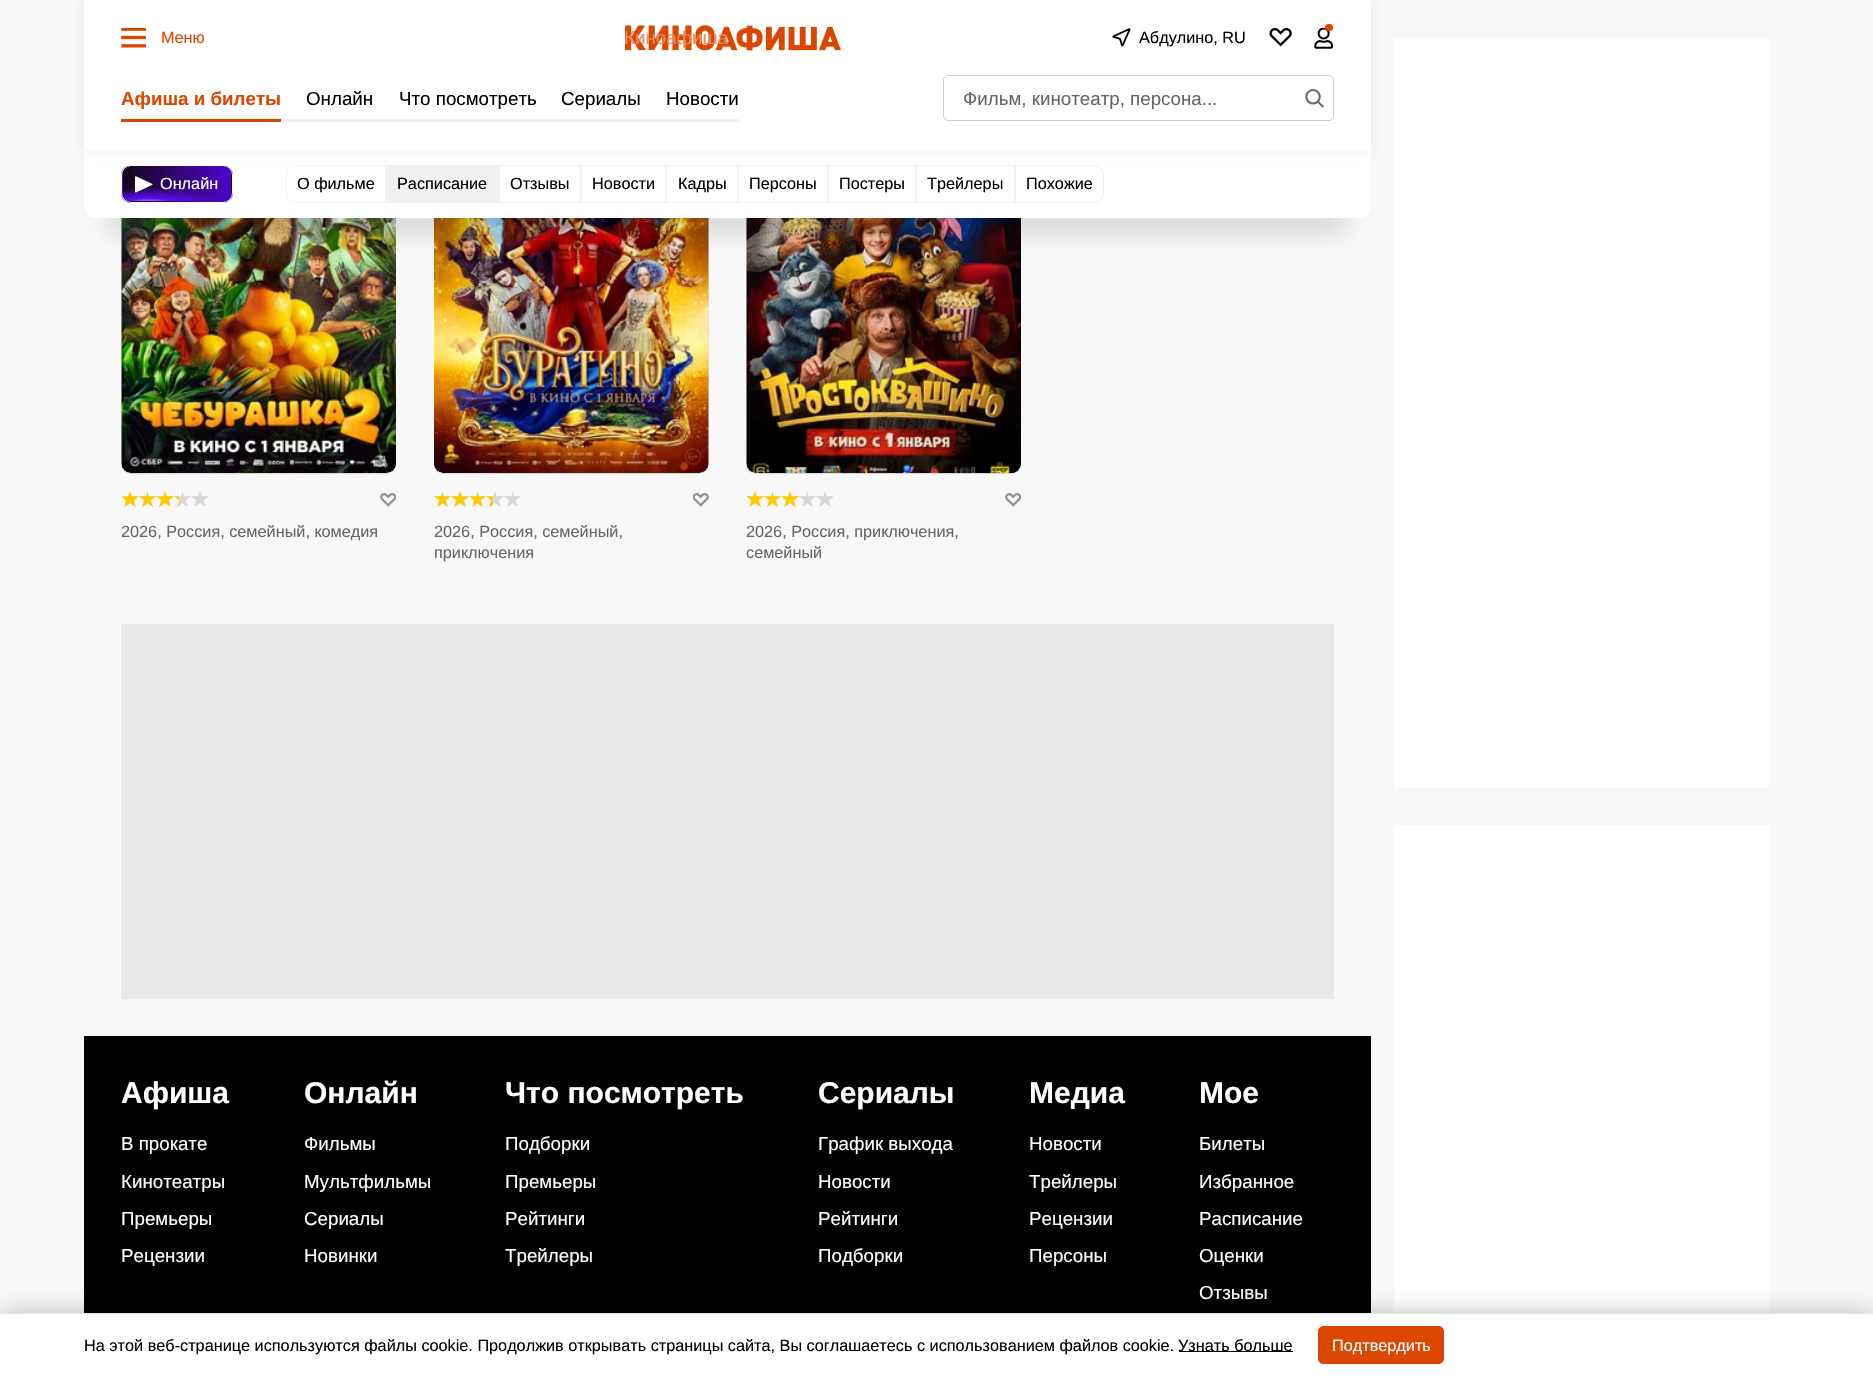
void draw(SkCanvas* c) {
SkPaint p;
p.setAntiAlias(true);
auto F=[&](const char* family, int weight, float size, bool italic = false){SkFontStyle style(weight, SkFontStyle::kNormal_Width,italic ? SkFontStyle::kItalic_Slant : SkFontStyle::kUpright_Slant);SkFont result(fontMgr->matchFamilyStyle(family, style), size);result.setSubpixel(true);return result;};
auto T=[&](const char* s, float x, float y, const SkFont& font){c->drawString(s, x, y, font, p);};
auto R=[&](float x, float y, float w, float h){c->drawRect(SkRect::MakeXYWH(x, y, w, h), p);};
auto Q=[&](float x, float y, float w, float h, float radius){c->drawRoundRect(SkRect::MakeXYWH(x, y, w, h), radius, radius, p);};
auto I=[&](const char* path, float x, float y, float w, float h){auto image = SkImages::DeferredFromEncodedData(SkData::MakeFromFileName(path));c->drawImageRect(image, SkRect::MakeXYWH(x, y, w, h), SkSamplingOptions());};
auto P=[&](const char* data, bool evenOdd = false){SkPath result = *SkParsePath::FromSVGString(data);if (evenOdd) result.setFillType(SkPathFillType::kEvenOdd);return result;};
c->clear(0xfff8f8f8);
p.setColor(0xffd8d8d8);
Q(121,81,275,393,10);
I("9.png",121,218,275,255);
Q(434,81,275,393,10);
I("13.png",434,218,275,255);
Q(746,81,275,393,10);
I("17.png",746,218,275,255);
p.setColor(0x33000000);
p.setMaskFilter(SkMaskFilter::MakeBlur(kNormal_SkBlurStyle, 12.5));
c->drawRect(SkRect::MakeXYWH(109,213,1237,17),p);
p.setMaskFilter(nullptr);
p.setColor(0xffffffff);
c->drawPath(P("M84 150h1287v58c0 5.5-4.5 10-10 10h-1267c-5.5 0-10-4.5-10-10z"),p);
c->save();
c->clipPath(P("M131 165h92c5.5 0 10 4.5 10 10v18c0 5.5-4.5 10-10 10h-92c-5.5 0-10-4.5-10-10v-18c0-5.5 4.5-10 10-10z"),true);
{
const SkColor colors[] = {0xff120513,0xff4f03cd};
const float stops[] = {0,1};
const SkPoint ends[] = {{13,187}, {123,180}};
p.setShader(SkGradientShader::MakeLinear(ends, colors, stops, 2, SkTileMode::kClamp));
p.setAlpha(255);
}
R(121,166,2,35);
{
const SkColor colors[] = {0xff120513,0xff4f03cd};
const float stops[] = {0,1};
const SkPoint ends[] = {{122,187}, {232,180}};
p.setShader(SkGradientShader::MakeLinear(ends, colors, stops, 2, SkTileMode::kClamp));
p.setAlpha(255);
}
R(123,166,108,35);
{
const SkColor colors[] = {0xff120513,0xff4f03cd};
const float stops[] = {0,1};
const SkPoint ends[] = {{230,187}, {341,180}};
p.setShader(SkGradientShader::MakeLinear(ends, colors, stops, 2, SkTileMode::kClamp));
p.setAlpha(255);
}
R(231,166,2,35);
{
const SkColor colors[] = {0xff120513,0xff4f03cd};
const float stops[] = {0,1};
const SkPoint ends[] = {{122,222}, {232,215}};
p.setShader(SkGradientShader::MakeLinear(ends, colors, stops, 2, SkTileMode::kClamp));
p.setAlpha(255);
}
R(123,201,108,2);
{
const SkColor colors[] = {0xffffffff,0xff5d0ef5,0x005d0ef5};
const float stops[] = {0,.36,1};
SkMatrix m = SkMatrix::Translate(149,205).preScale(74,18);
p.setShader(SkGradientShader::MakeRadial({0, 0}, 1, colors, stops, 3, SkTileMode::kClamp, 0, &m));
p.setAlpha(255);
}
R(123,187,97,14);
{
const SkColor colors[] = {0xffffffff,0xff5d0ef5,0x005d0ef5};
const float stops[] = {0,.36,1};
SkMatrix m = SkMatrix::Translate(257,205).preScale(74,18);
p.setShader(SkGradientShader::MakeRadial({0, 0}, 1, colors, stops, 3, SkTileMode::kClamp, 0, &m));
p.setAlpha(255);
}
R(231,188,2,13);
c->restore();
p.setStroke(true);
p.setStrokeWidth(1);
p.setShader(nullptr);
p.setColor(0xffffffff);
c->drawRoundRect(SkRect::MakeXYWH(121.5,165.5,111,37),9.5,9.5,p);
p.setColor(0xfff2f2f2);
c->drawPath(P("M296 165.5h89.5v37h-89.5c-5 0-9.5-4.5-9.5-9.5v-18c0-5 4.5-9.5 9.5-9.5z"),p);
p.setStroke(false);
p.setColor(0xfff1f1f1);
R(386,165,113,38);
p.setStroke(true);
p.setColor(0xfff2f2f2);
c->drawRect(SkRect::MakeXYWH(499.5,165.5,81,37),p);
c->drawRect(SkRect::MakeXYWH(581.5,165.5,84,37),p);
c->drawRect(SkRect::MakeXYWH(666.5,165.5,71,37),p);
c->drawRect(SkRect::MakeXYWH(738.5,165.5,89,37),p);
c->drawRect(SkRect::MakeXYWH(828.5,165.5,87,37),p);
c->drawRect(SkRect::MakeXYWH(916.5,165.5,98,37),p);
c->drawPath(P("M1015.5 165.5h78.5c5 0 9.5 4.5 9.5 9.5v18c0 5-4.5 9.5-9.5 9.5h-78.5z"),p);
p.setStroke(false);
p.setColor(0xffffffff);
R(1394,38,375,750);
p.setColor(0x143d3d3d);
p.setMaskFilter(SkMaskFilter::MakeBlur(kNormal_SkBlurStyle, 7.5));
c->drawRect(SkRect::MakeXYWH(84,1,1287,150),p);
p.setMaskFilter(nullptr);
p.setColor(0xffffffff);
R(84,0,1287,150);
I("1.png",121,28,25,20);
auto f1 = F("Liberation Sans",400,16.25);
p.setColor(0xffdc4700);
T("Меню",161,43,f1);
I("2.png",625,25,90,26);
I("3.png",715,25,126,26);
auto f2 = F("Liberation Sans",400,18.75);
p.setColor(0xffe98b5e);
T("Киноафиша",624,44,f2);
I("4.png",1112,28,19,19);
p.setColor(0xff000000);
T("Абдулино, RU",1139,43,f1);
I("5.png",1269,28,23,19);
I("6.png",1314,28,19,21);
p.setColor(0xffdc4700);
Q(1325,24,8,7,3.5);
auto f3 = F("Liberation Sans",700,18.75);
T("Афиша и билеты",121,105,f3);
R(121,119,160,3);
p.setColor(0xff000000);
T("Онлайн",306,105,f2);
T("Что посмотреть",399,105,f2);
T("Сериалы",561,105,f2);
T("Новости",666,105,f2);
p.setColor(0xfff2f2f2);
R(281,119,458,3);
p.setStroke(true);
p.setColor(0xffcdcdcd);
c->drawRoundRect(SkRect::MakeXYWH(943.5,75.5,390,45),4.5,4.5,p);
p.setStroke(false);
p.setColor(0xff666666);
T("Фильм, кинотеатр, персона...",963,105,f2);
I("7.png",1305,89,19,19);
I("8.png",135,176,18,17);
p.setColor(0xffffffff);
T("Онлайн",160,189,f1);
p.setColor(0xff000000);
T("О фильме",297,189,f1);
T("Расписание",397,189,f1);
T("Отзывы",510,189,f1);
T("Новости",592,189,f1);
T("Кадры",678,189,f1);
T("Персоны",749,189,f1);
T("Постеры",839,189,f1);
T("Трейлеры",927,189,f1);
T("Похожие",1026,189,f1);
I("11.png",121,491,88,16);
I("10.png",121,490,58,17);
I("12.png",380,493,16,14);
p.setColor(0xff666666);
T("2026, Россия, семейный, комедия",121,537,f1);
I("15.png",434,491,87,16);
I("14.png",433,490,60,17);
I("16.png",693,493,16,14);
T("2026, Россия, семейный,",434,537,f1);
T("приключения",434,558,f1);
I("11.png",746,491,88,16);
I("18.png",746,490,54,17);
I("12.png",1005,493,16,14);
T("2026, Россия, приключения,",746,537,f1);
T("семейный",746,558,f1);
p.setColor(0xffe8e8e8);
R(121,624,1213,375);
p.setColor(0xff000000);
R(84,1036,1287,277);
auto f4 = F("Liberation Sans",700,30);
p.setColor(0xffffffff);
T("Афиша",121,1103,f4);
T("В прокате",121,1150,f2);
T("Кинотеатры",121,1188,f2);
T("Премьеры",121,1225,f2);
T("Рецензии",121,1262,f2);
T("Онлайн",304,1103,f4);
T("Фильмы",304,1150,f2);
T("Мультфильмы",304,1188,f2);
T("Сериалы",304,1225,f2);
T("Новинки",304,1262,f2);
T("Что посмотреть",505,1103,f4);
T("Подборки",505,1150,f2);
T("Премьеры",505,1188,f2);
T("Рейтинги",505,1225,f2);
T("Трейлеры",505,1262,f2);
T("Сериалы",818,1103,f4);
T("График выхода",818,1150,f2);
T("Новости",818,1188,f2);
T("Рейтинги",818,1225,f2);
T("Подборки",818,1262,f2);
T("Медиа",1029,1103,f4);
T("Новости",1029,1150,f2);
T("Трейлеры",1029,1188,f2);
T("Рецензии",1029,1225,f2);
T("Персоны",1029,1262,f2);
T("Мое",1199,1103,f4);
T("Билеты",1199,1150,f2);
T("Избранное",1199,1188,f2);
T("Расписание",1199,1225,f2);
T("Оценки",1199,1262,f2);
T("Отзывы",1199,1299,f2);
R(1394,825,375,488);
p.setColor(0x40000000);
p.setMaskFilter(SkMaskFilter::MakeBlur(kNormal_SkBlurStyle, 12.5));
c->drawRect(SkRect::MakeXYWH(0,1313,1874,63),p);
p.setMaskFilter(nullptr);
p.setColor(0xffffffff);
R(0,1314,1873,62);
p.setColor(0xffe4e4e4);
R(0,1313,1873,1);
p.setColor(0xff000000);
T("На этой веб-странице используются файлы cookie. Продолжив открывать страницы сайта, Вы соглашаетесь с использованием файлов cookie.",84,1351,f1);
R(1179,1351,114,1);
T("Узнать больше",1178,1351,f1);
p.setColor(0xffdc4700);
c->drawRoundRect(SkRect::MakeXYWH(1318.5,1326.5,125,37),4.5,4.5,p);
p.setStroke(true);
c->drawRoundRect(SkRect::MakeXYWH(1318.5,1326.5,125,37),4.5,4.5,p);
p.setStroke(false);
p.setColor(0xffffffff);
T("Подтвердить",1332,1351,f1);
}
